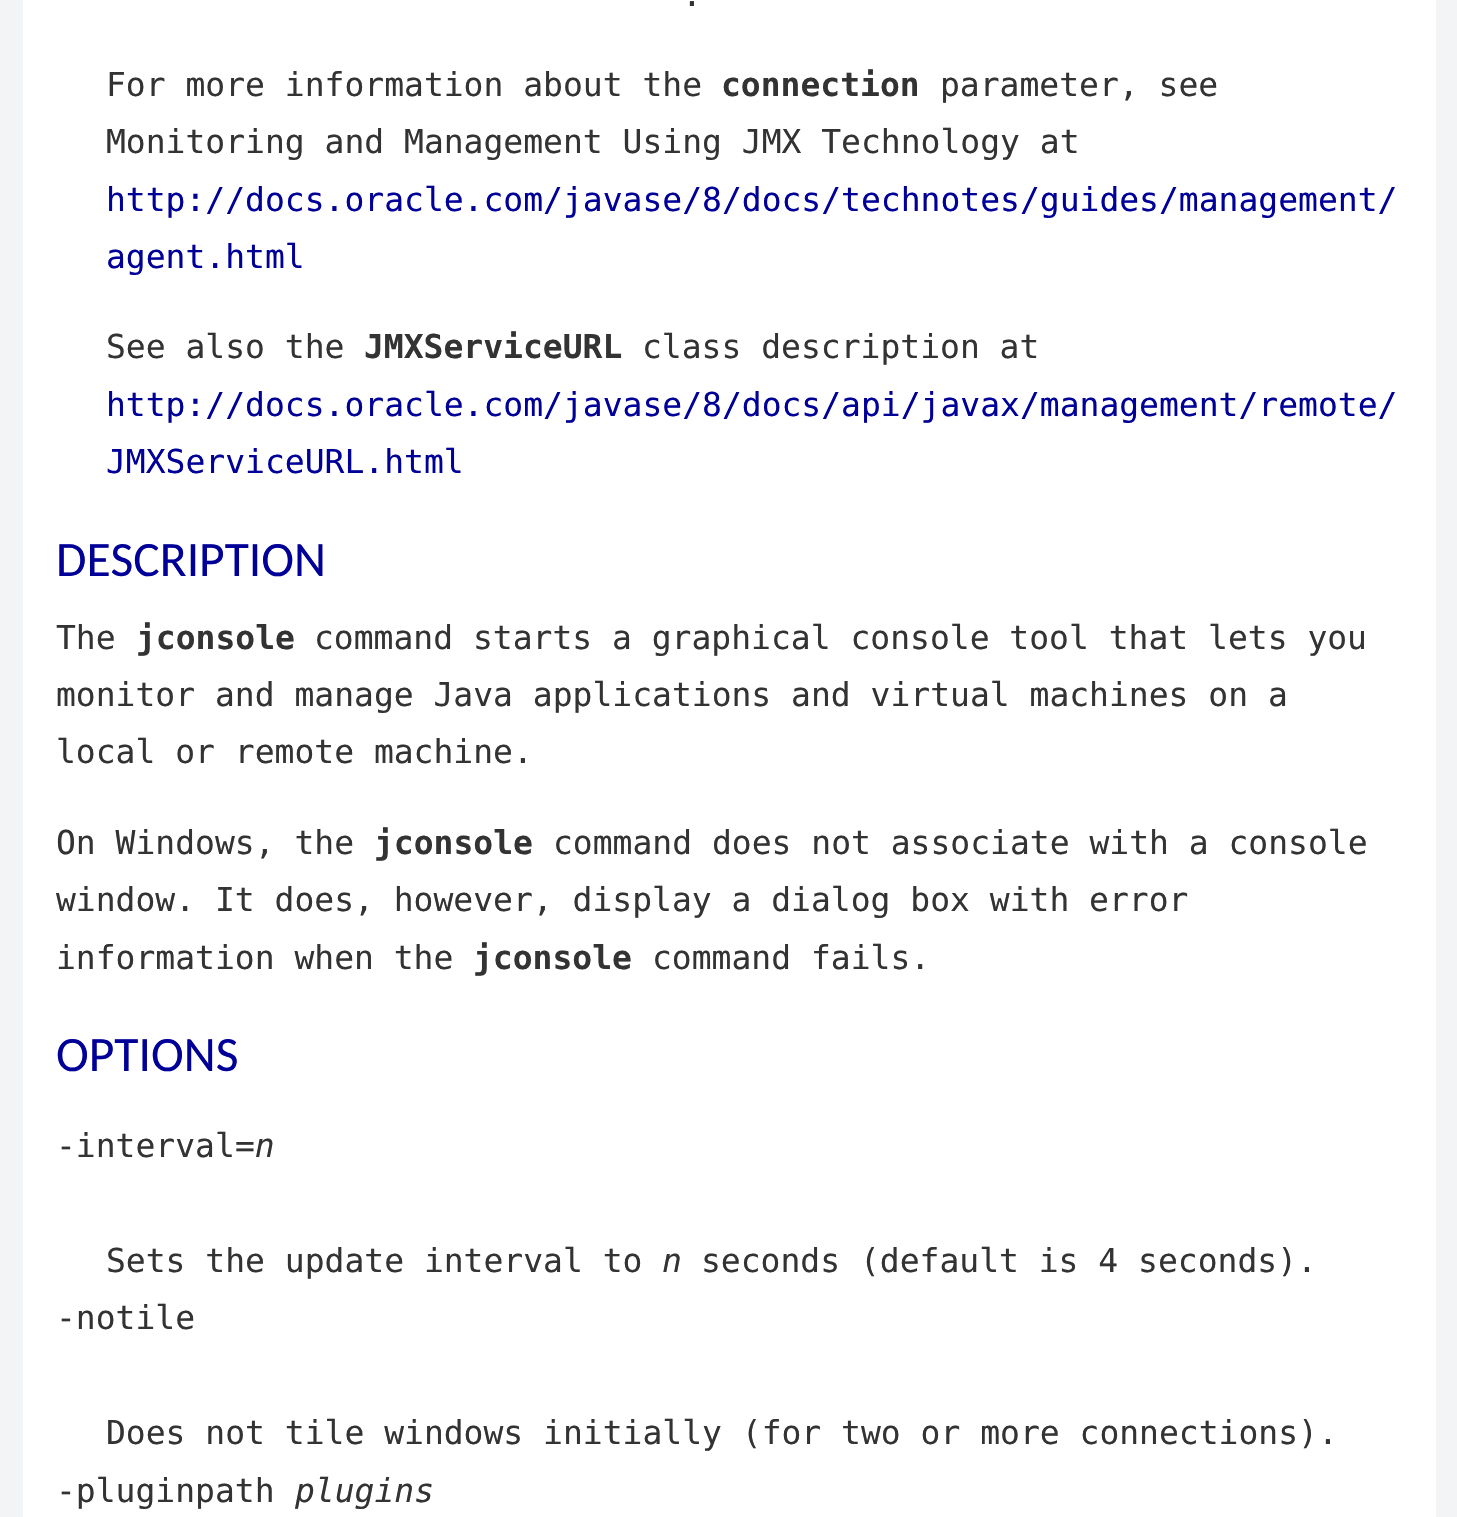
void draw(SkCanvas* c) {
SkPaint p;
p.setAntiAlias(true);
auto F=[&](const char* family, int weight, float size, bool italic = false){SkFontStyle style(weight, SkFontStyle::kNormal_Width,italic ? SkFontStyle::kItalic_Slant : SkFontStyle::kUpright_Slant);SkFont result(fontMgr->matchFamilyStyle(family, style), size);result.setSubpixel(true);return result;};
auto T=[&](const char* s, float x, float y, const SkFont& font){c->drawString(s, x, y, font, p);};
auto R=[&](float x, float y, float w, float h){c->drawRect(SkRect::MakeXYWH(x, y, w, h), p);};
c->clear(0xfff3f4f6);
p.setColor(0xffffffff);
R(23,0,1413,1517);
auto f1 = F("DejaVu Sans Mono",400,33);
p.setColor(0xff333333);
T(".",682,6,f1);
T("For more information about the",106,96,f1);
auto f2 = F("DejaVu Sans Mono",700,33);
T("connection",721,96,f2);
T("parameter, see",940,96,f1);
T("Monitoring and Management Using JMX Technology at",106,153,f1);
p.setColor(0xff000099);
T("http://docs.oracle.com/javase/8/docs/technotes/guides/management/",106,211,f1);
T("agent.html",106,268,f1);
p.setColor(0xff333333);
T("See also the",106,358,f1);
T("JMXServiceURL",364,358,f2);
T("class description at",642,358,f1);
p.setColor(0xff000099);
T("http://docs.oracle.com/javase/8/docs/api/javax/management/remote/",106,416,f1);
T("JMXServiceURL.html",106,473,f1);
auto f3 = F("Carlito",400,49.5);
T("DESCRIPTION",56,576,f3);
p.setColor(0xff333333);
T("The",56,649,f1);
T("jconsole",136,649,f2);
T("command starts a graphical console tool that lets you",314,649,f1);
T("monitor and manage Java applications and virtual machines on a",56,706,f1);
T("local or remote machine.",56,763,f1);
T("On Windows, the",56,854,f1);
T("jconsole",374,854,f2);
T("command does not associate with a console",553,854,f1);
T("window. It does, however, display a dialog box with error",56,911,f1);
T("information when the",56,969,f1);
T("jconsole",473,969,f2);
T("command fails.",652,969,f1);
p.setColor(0xff000099);
T("OPTIONS",56,1071,f3);
p.setColor(0xff333333);
T("-interval",56,1157,f1);
auto f4 = F("DejaVu Sans Mono",400,33,true);
T("=n",235,1157,f4);
T("Sets the update interval to",106,1272,f1);
T("n",662,1272,f4);
T("seconds (default is 4 seconds).",701,1272,f1);
T("-notile",56,1329,f1);
T("Does not tile windows initially (for two or more connections).",106,1444,f1);
T("-pluginpath",56,1502,f1);
T("plugins",295,1502,f4);
}
